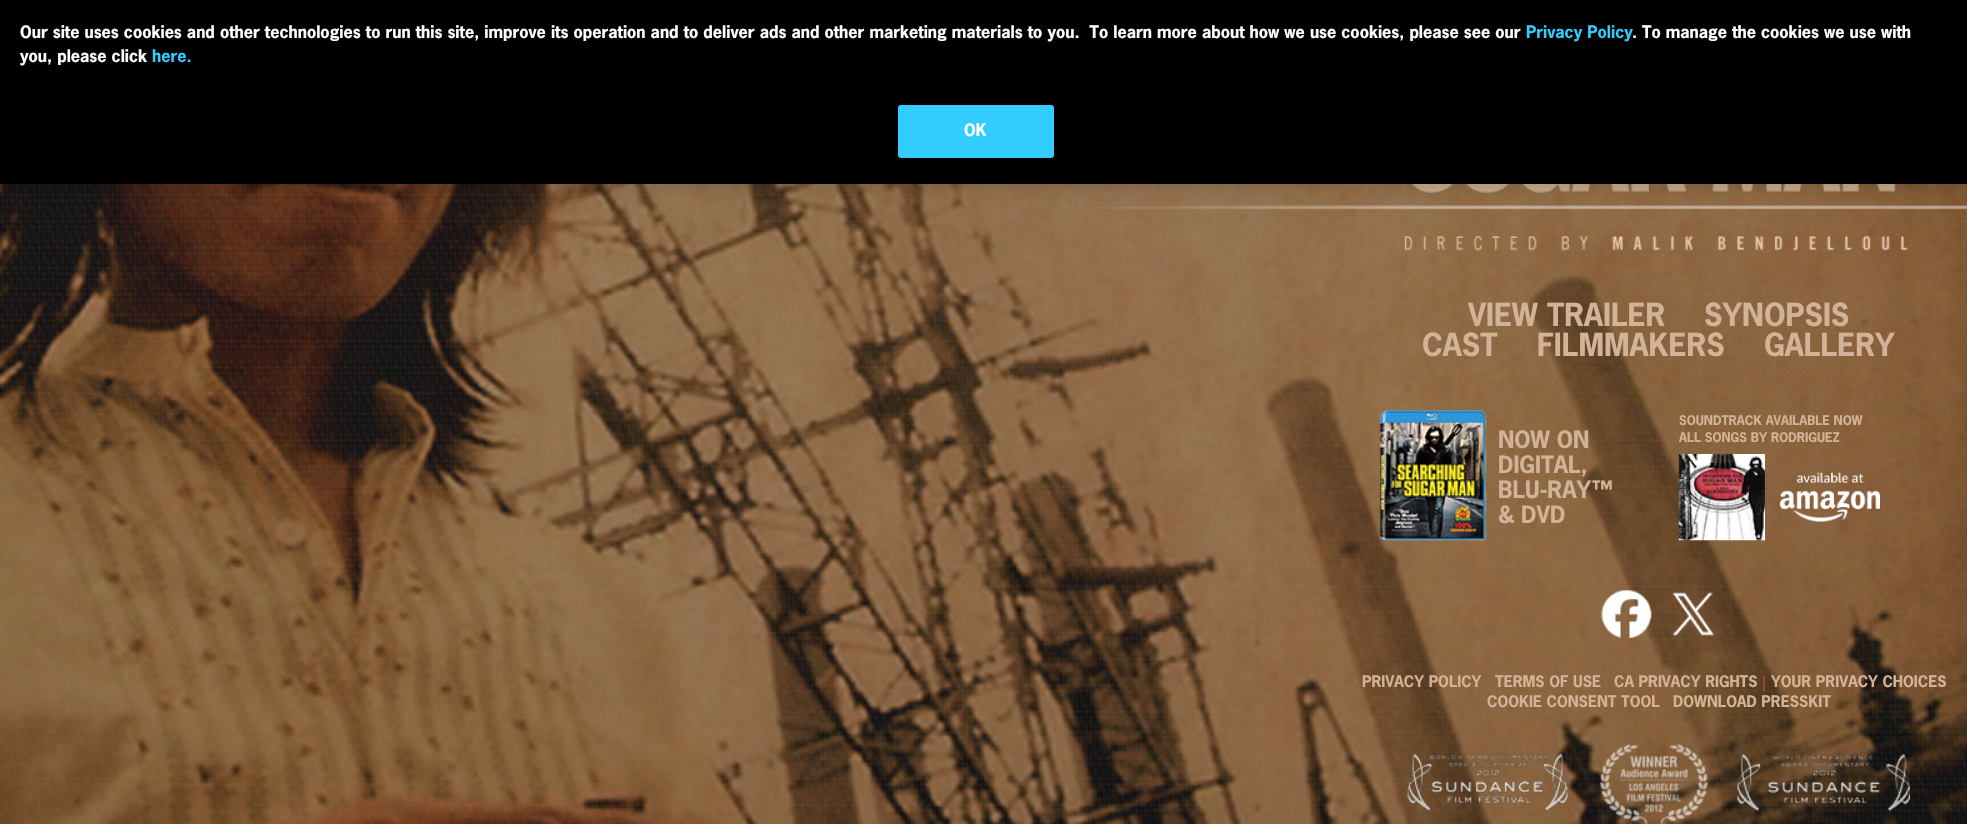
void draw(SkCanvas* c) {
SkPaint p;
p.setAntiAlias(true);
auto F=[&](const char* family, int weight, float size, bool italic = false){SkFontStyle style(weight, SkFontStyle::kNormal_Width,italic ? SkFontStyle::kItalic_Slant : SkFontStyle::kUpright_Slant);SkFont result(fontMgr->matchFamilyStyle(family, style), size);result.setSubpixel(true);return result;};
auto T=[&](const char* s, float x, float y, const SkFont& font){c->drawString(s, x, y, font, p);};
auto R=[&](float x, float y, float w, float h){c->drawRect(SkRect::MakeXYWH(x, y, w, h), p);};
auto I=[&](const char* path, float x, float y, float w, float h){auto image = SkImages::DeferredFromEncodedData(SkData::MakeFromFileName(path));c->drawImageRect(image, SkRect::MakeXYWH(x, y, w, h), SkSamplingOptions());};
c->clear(0xffffffff);
I("1.png",0,184,1967,640);
I("2.png",1411,184,485,9);
I("3.png",1090,205,877,46);
p.setColor(0x33000000);
p.setMaskFilter(SkMaskFilter::MakeBlur(kNormal_SkBlurStyle, 11));
c->drawRect(SkRect::MakeXYWH(0,0,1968,184),p);
p.setMaskFilter(nullptr);
p.setColor(0xff000000);
R(0,0,1967,184);
auto f1 = F("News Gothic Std",700,16.25);
p.setColor(0xffffffff);
T("Our site uses cookies and other technologies to run this site, improve its operation and to deliver ads and other marketing materials to you.  To learn more about how we use cookies, please see our",20,38,f1);
p.setColor(0xff33ccff);
T("Privacy Policy",1526,38,f1);
p.setColor(0xffffffff);
T(". To manage the cookies we use with",1632,38,f1);
T("you, please click",20,62,f1);
p.setColor(0xff33ccff);
T("here.",152,62,f1);
c->drawRoundRect(SkRect::MakeXYWH(898.5,105.5,155,52),2,2,p);
p.setStroke(true);
p.setStrokeWidth(1);
c->drawRoundRect(SkRect::MakeXYWH(898.5,105.5,155,52),2,2,p);
p.setStroke(false);
p.setColor(0xffffffff);
T("OK",964,136,f1);
auto f2 = F("News Gothic Std",700,30);
p.setColor(0xffd2b397);
T("VIEW TRAILER",1468,326,f2);
T("SYNOPSIS",1704,326,f2);
T("CAST",1422,356,f2);
T("FILMMAKERS",1537,356,f2);
T("GALLERY",1764,356,f2);
I("4.png",1379,410,108,131);
auto f3 = F("News Gothic Std",700,22.5);
T("NOW ON",1498,448,f3);
T("DIGITAL,",1498,473,f3);
T("BLU-RAY™",1498,498,f3);
T("& DVD",1498,523,f3);
auto f4 = F("News Gothic Std",700,12.5);
T("SOUNDTRACK AVAILABLE NOW",1679,425,f4);
T("ALL SONGS BY RODRIGUEZ",1679,442,f4);
I("5.png",1678,454,87,87);
I("6.png",1780,472,100,50);
I("7.png",1601,590,51,48);
I("8.png",1672,592,42,44);
auto f5 = F("News Gothic Std",700,15);
T("PRIVACY POLICY",1362,687,f5);
T("TERMS OF USE",1495,687,f5);
T("CA PRIVACY RIGHTS",1614,687,f5);
p.setColor(0xff965029);
T("|",1762,687,f5);
p.setColor(0xffd2b397);
T("YOUR PRIVACY CHOICES",1771,687,f5);
T("COOKIE CONSENT TOOL",1487,707,f5);
T("DOWNLOAD PRESSKIT",1673,707,f5);
I("9.png",1407,744,503,80);
}
